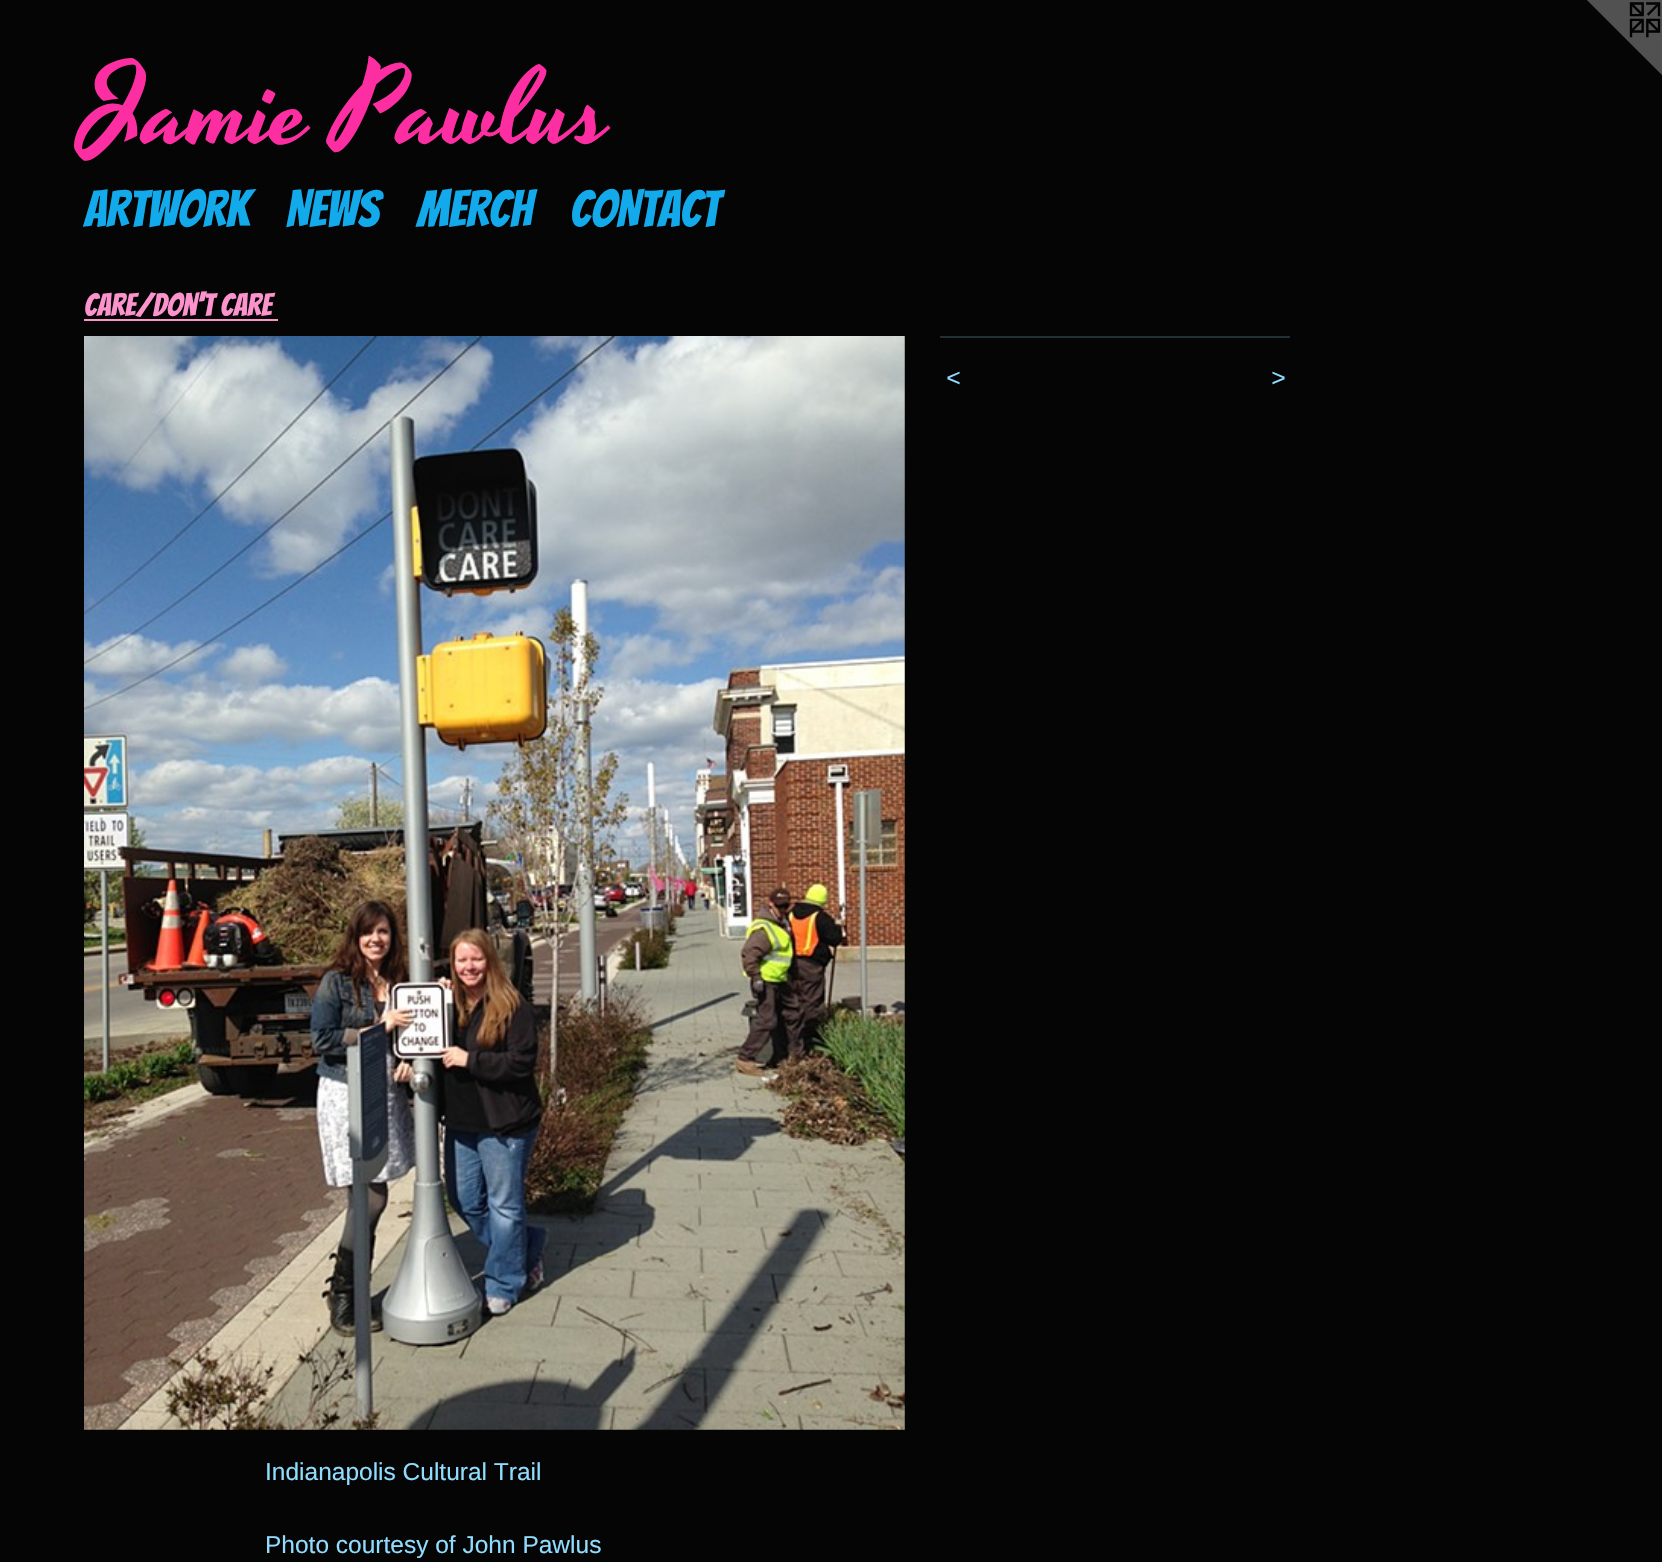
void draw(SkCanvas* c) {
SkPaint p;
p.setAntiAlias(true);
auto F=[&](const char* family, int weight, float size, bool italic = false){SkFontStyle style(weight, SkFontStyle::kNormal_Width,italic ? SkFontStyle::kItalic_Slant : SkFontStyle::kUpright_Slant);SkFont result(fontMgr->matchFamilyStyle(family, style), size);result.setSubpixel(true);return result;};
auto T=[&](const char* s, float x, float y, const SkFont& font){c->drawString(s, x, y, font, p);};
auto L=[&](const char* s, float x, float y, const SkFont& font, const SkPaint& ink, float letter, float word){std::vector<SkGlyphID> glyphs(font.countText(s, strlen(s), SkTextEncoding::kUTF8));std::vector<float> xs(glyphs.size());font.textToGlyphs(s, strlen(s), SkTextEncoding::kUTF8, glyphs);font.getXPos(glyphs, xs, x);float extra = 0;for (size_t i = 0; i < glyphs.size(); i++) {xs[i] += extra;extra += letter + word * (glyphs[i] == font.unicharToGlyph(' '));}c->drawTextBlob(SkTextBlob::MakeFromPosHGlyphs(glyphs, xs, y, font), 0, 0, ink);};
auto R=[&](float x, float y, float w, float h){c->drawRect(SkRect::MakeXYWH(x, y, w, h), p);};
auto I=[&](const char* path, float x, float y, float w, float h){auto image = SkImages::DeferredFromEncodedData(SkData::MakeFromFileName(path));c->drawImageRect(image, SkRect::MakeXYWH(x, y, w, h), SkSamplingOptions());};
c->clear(0xff050505);
I("1.png",1587,0,75,75);
auto f1 = F("Yesteryear",400,108.5);
p.setColor(0xfffc2ea1);
T("Jamie Pawlus",84,141,f1);
auto f2 = F("Bangers",400,51);
p.setColor(0xff13aaec);
T("ARTWORK",84,227,f2);
T("NEWS",286,227,f2);
T("MERCH",417,227,f2);
T("CONTACT",570,227,f2);
auto f3 = F("Bangers",400,31.5);
p.setColor(0xfffc93cd);
T("Care/Don't Care",84,316,f3);
R(84,319,194,2);
I("2.png",84,336,821,1094);
p.setColor(0xff213037);
R(940,336,350,2);
auto f4 = F("Liberation Sans",400,24.5,true);
p.setColor(0xff90dcfe);
L("<",946,386,f4,p,2,0);
L(">",1271,386,f4,p,2,0);
auto f5 = F("Liberation Sans",400,24.5);
T("Indianapolis Cultural Trail",265,1480,f5);
T("Photo courtesy of John Pawlus",265,1553,f5);
}
